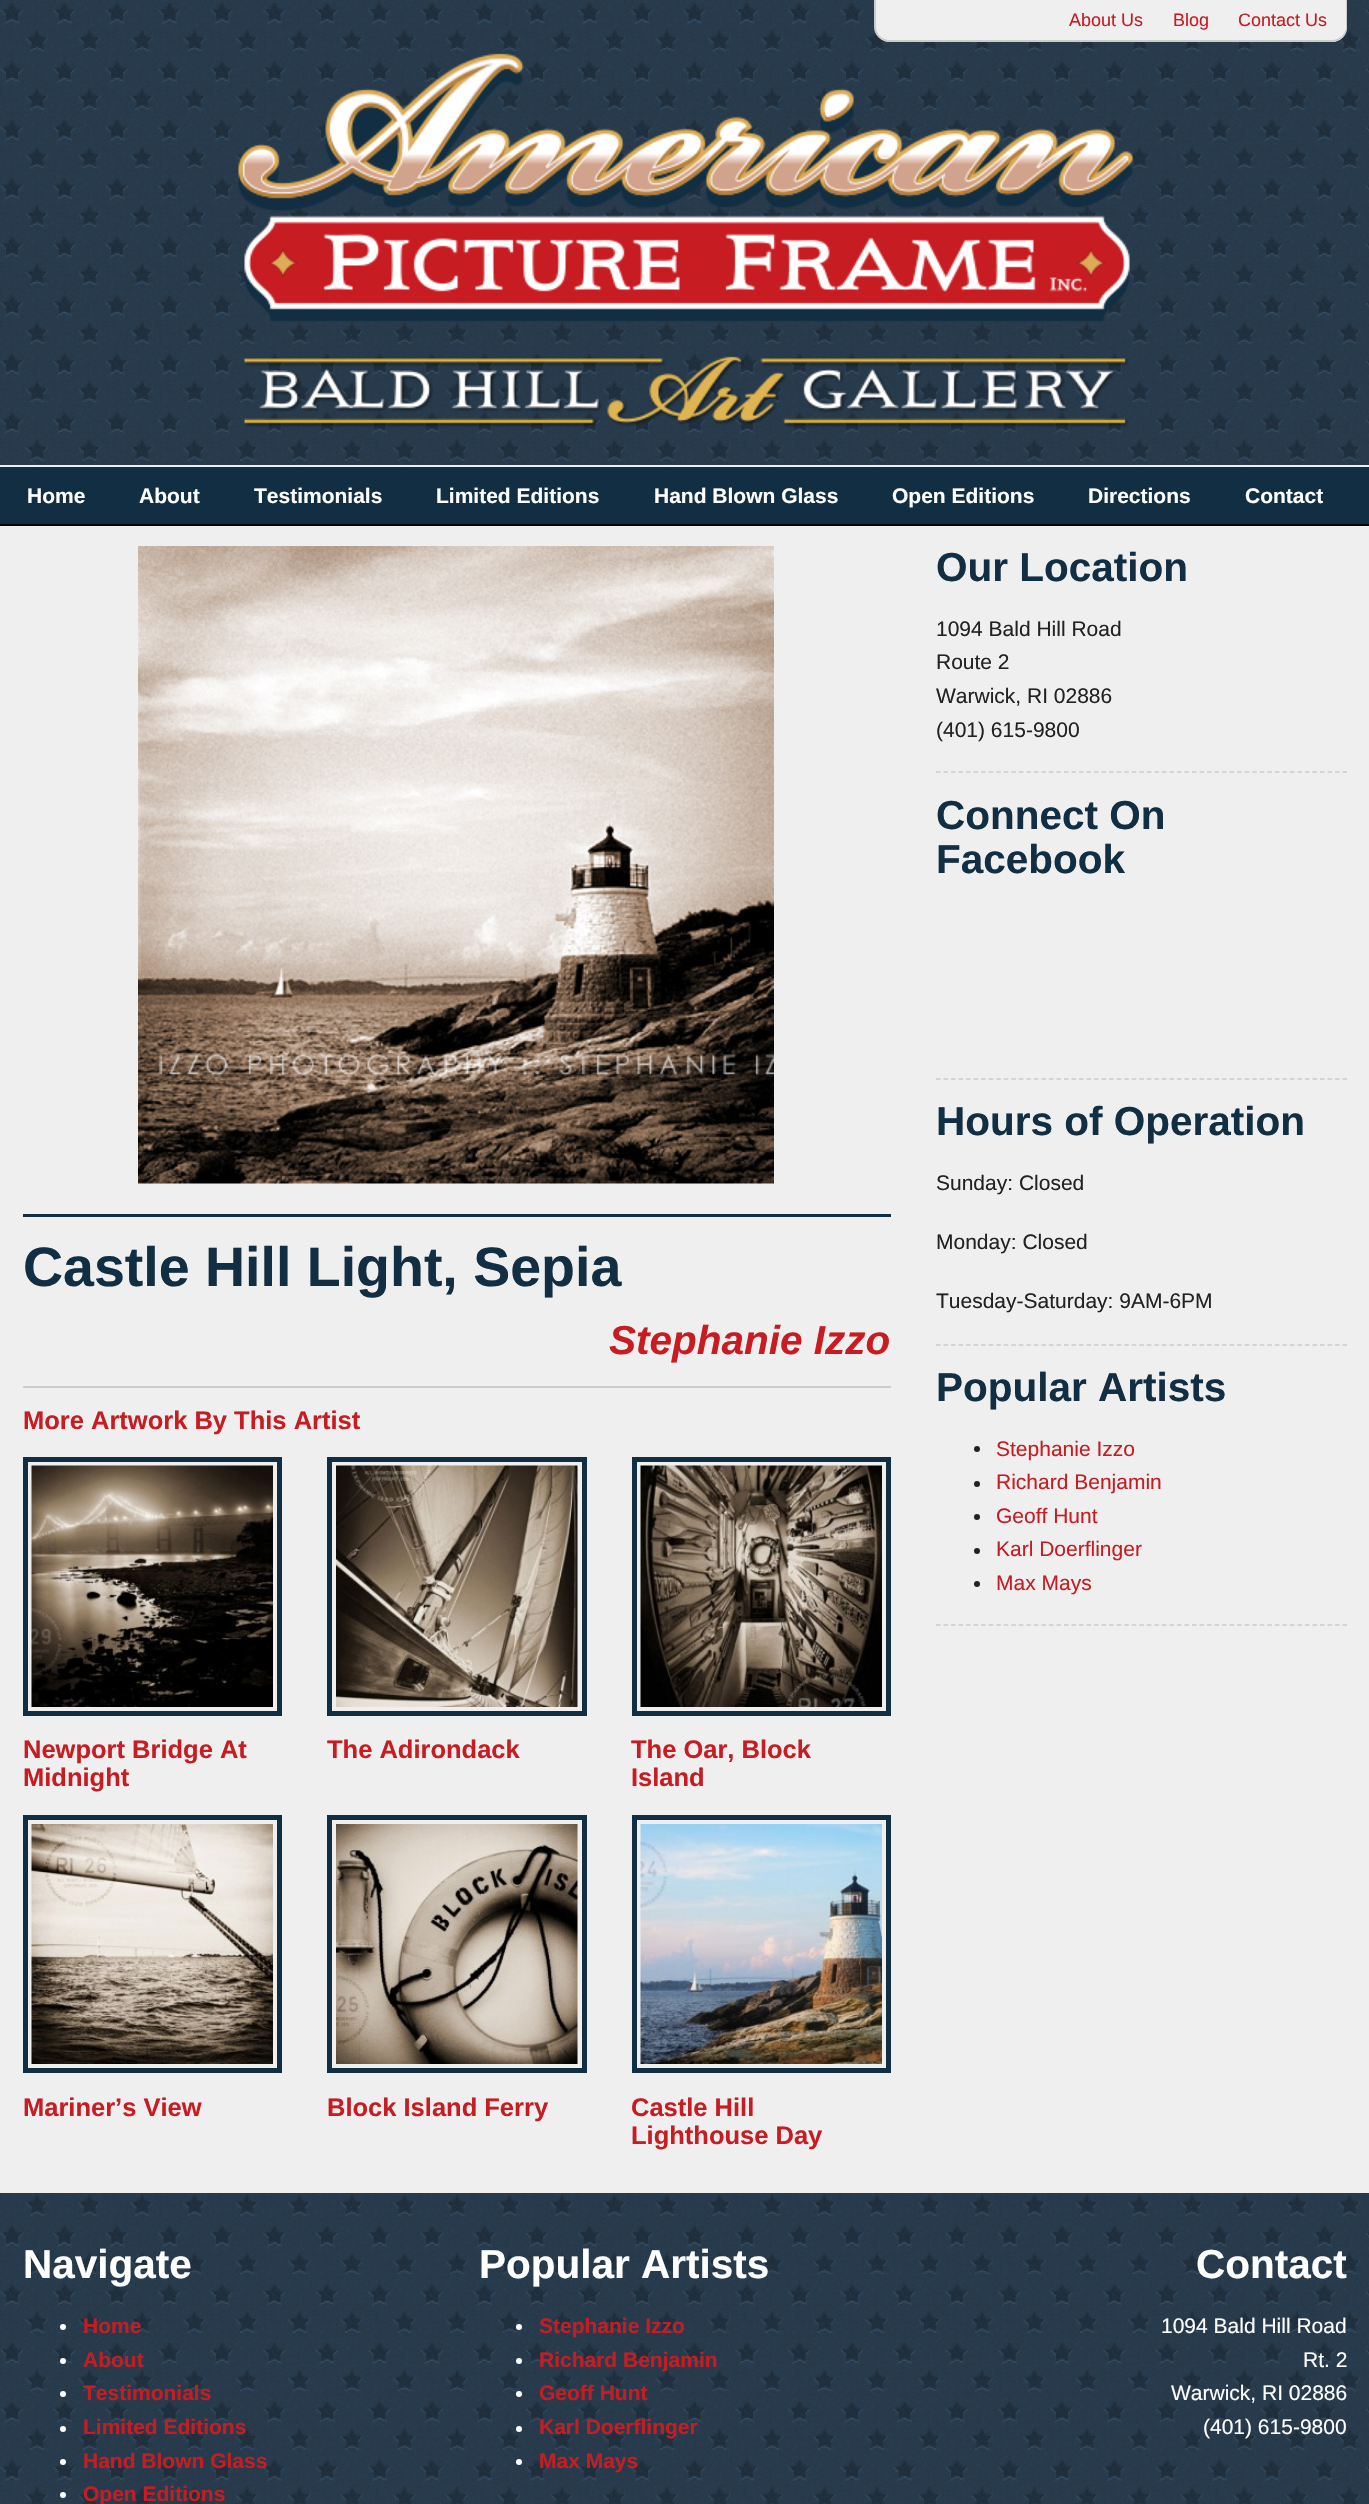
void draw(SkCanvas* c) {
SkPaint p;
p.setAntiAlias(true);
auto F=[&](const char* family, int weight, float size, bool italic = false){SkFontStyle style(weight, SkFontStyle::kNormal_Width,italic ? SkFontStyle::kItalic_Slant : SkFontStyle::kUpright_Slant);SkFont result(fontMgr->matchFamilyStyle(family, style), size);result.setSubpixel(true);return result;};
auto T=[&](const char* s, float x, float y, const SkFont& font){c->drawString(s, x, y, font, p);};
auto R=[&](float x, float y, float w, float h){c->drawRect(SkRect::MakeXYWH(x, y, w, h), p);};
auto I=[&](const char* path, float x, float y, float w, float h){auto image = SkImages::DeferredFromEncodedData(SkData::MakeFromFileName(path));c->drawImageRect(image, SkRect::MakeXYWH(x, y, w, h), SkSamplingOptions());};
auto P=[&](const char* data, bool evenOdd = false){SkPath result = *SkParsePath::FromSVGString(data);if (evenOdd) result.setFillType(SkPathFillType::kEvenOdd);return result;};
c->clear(0xffffffff);
I("1.png",0,0,1369,2504);
p.setColor(0xffefefef);
c->drawPath(P("M875 0h472v27c0 8.5-6.5 15-15 15h-442c-8.5 0-15-6.5-15-15z"),p);
p.setColor(0xffcccccc);
c->drawPath(P("M874 0h473v27c0 8-7 15-15 15h-442c-9 0-16-7-16-15zm2 0h470v27c0 7-7 13-14 13h-442c-8 0-14-6-14-13z",true),p);
auto f1 = F("Liberation Sans",400,18);
p.setColor(0xffc71d22);
T("About Us",1069,26,f1);
T("Blog",1173,26,f1);
T("Contact Us",1238,26,f1);
I("2.png",238,53,895,269);
I("3.png",244,356,885,71);
p.setColor(0xff122e43);
R(0,467,1369,57);
p.setColor(0xffeeeeee);
R(0,465,1369,2);
p.setColor(0xff000000);
R(0,524,1369,2);
auto f2 = F("Liberation Sans",700,21);
p.setColor(0xffffffff);
T("Home",27,503,f2);
T("About",139,503,f2);
T("Testimonials",254,503,f2);
T("Limited Editions",436,503,f2);
T("Hand Blown Glass",654,503,f2);
T("Open Editions",892,503,f2);
T("Directions",1088,503,f2);
T("Contact",1245,503,f2);
p.setColor(0xffefefef);
R(0,526,1369,1667);
p.setStroke(true);
p.setStrokeWidth(1.5);
p.setColor(0xffcccccc);
p.setPathEffect(SkDashPathEffect::Make({{4.5f,3.03f}}, 0));
c->drawPath(P("M936 772h411"),p);
p.setPathEffect(nullptr);
auto f3 = F("Liberation Sans",700,40.5);
p.setStroke(false);
p.setColor(0xff122e43);
T("Our Location",936,581,f3);
auto f4 = F("Liberation Sans",400,21);
p.setColor(0xff222222);
T("1094 Bald Hill Road",936,636,f4);
T("Route 2",936,669,f4);
T("Warwick, RI 02886",936,703,f4);
T("(401) 615-9800",936,737,f4);
p.setStroke(true);
p.setColor(0xffcccccc);
p.setPathEffect(SkDashPathEffect::Make({{4.5f,3.03f}}, 0));
c->drawPath(P("M936 1079h411"),p);
p.setPathEffect(nullptr);
p.setStroke(false);
p.setColor(0xff122e43);
T("Connect On",936,829,f3);
T("Facebook",936,873,f3);
p.setStroke(true);
p.setColor(0xffcccccc);
p.setPathEffect(SkDashPathEffect::Make({{4.5f,3.03f}}, 0));
c->drawPath(P("M936 1345h411"),p);
p.setPathEffect(nullptr);
p.setStroke(false);
p.setColor(0xff122e43);
T("Hours of Operation",936,1135,f3);
p.setColor(0xff222222);
T("Sunday: Closed",936,1190,f4);
T("Monday: Closed",936,1249,f4);
T("Tuesday-Saturday: 9AM-6PM",936,1308,f4);
p.setStroke(true);
p.setColor(0xffcccccc);
p.setPathEffect(SkDashPathEffect::Make({{4.5f,3.03f}}, 0));
c->drawPath(P("M936 1625h411"),p);
p.setPathEffect(nullptr);
p.setStroke(false);
p.setColor(0xff122e43);
T("Popular Artists",936,1401,f3);
p.setColor(0xff222222);
c->drawCircle(977,1449,3,p);
p.setColor(0xffc71d22);
T("Stephanie Izzo",996,1456,f4);
p.setColor(0xff222222);
c->drawCircle(977,1484,3,p);
p.setColor(0xffc71d22);
T("Richard Benjamin",996,1489,f4);
p.setColor(0xff222222);
c->drawCircle(977,1517,3,p);
p.setColor(0xffc71d22);
T("Geoff Hunt",996,1523,f4);
p.setColor(0xff222222);
c->drawCircle(977,1551,3,p);
p.setColor(0xffc71d22);
T("Karl Doerflinger",996,1556,f4);
p.setColor(0xff222222);
c->drawCircle(977,1584,3,p);
p.setColor(0xffc71d22);
T("Max Mays",996,1590,f4);
p.setColor(0xff122e43);
R(23,1214,868,3);
I("4.png",138,546,636,638);
auto f5 = F("Liberation Sans",700,55.5);
T("Castle Hill Light, Sepia",23,1286,f5);
auto f6 = F("Liberation Sans",700,40.5,true);
p.setColor(0xffc71d22);
T("Stephanie Izzo",609,1354,f6);
p.setColor(0xffcccccc);
R(23,1386,868,2);
auto f7 = F("Liberation Sans",700,25.5);
p.setColor(0xffc71d22);
T("More Artwork By This Artist",23,1429,f7);
p.setStroke(true);
p.setStrokeWidth(5);
p.setColor(0xff122e43);
c->drawRect(SkRect::MakeXYWH(25.5,1459.5,254,254),p);
I("5.png",31,1465,242,242);
p.setStroke(false);
p.setColor(0xffc71d22);
T("Newport Bridge At",23,1758,f7);
T("Midnight",23,1786,f7);
p.setStroke(true);
p.setColor(0xff122e43);
c->drawRect(SkRect::MakeXYWH(329.5,1459.5,255,254),p);
I("6.png",336,1465,242,242);
p.setStroke(false);
p.setColor(0xffc71d22);
T("The Adirondack",327,1758,f7);
p.setStroke(true);
p.setColor(0xff122e43);
c->drawRect(SkRect::MakeXYWH(634.5,1459.5,254,254),p);
I("7.png",640,1465,242,242);
p.setStroke(false);
p.setColor(0xffc71d22);
T("The Oar, Block",631,1758,f7);
T("Island",631,1786,f7);
p.setStroke(true);
p.setColor(0xff122e43);
c->drawRect(SkRect::MakeXYWH(25.5,1817.5,254,253),p);
I("8.png",31,1824,242,240);
p.setStroke(false);
p.setColor(0xffc71d22);
T("Mariner’s View",23,2116,f7);
p.setStroke(true);
p.setColor(0xff122e43);
c->drawRect(SkRect::MakeXYWH(329.5,1817.5,255,253),p);
I("9.png",336,1824,242,240);
p.setStroke(false);
p.setColor(0xffc71d22);
T("Block Island Ferry",327,2116,f7);
p.setStroke(true);
p.setColor(0xff122e43);
c->drawRect(SkRect::MakeXYWH(634.5,1817.5,254,253),p);
I("10.png",640,1824,242,240);
p.setStroke(false);
p.setColor(0xffc71d22);
T("Castle Hill",631,2116,f7);
T("Lighthouse Day",631,2144,f7);
p.setColor(0xffffffff);
T("Navigate",23,2278,f3);
c->drawCircle(63,2327,3,p);
p.setColor(0xffc71d22);
T("Home",83,2333,f2);
p.setColor(0xffffffff);
c->drawCircle(63,2361,3,p);
p.setColor(0xffc71d22);
T("About",83,2367,f2);
p.setColor(0xffffffff);
c->drawCircle(63,2394,3,p);
p.setColor(0xffc71d22);
T("Testimonials",83,2400,f2);
p.setColor(0xffffffff);
c->drawCircle(63,2429,3,p);
p.setColor(0xffc71d22);
T("Limited Editions",83,2434,f2);
p.setColor(0xffffffff);
c->drawCircle(63,2462,3,p);
p.setColor(0xffc71d22);
T("Hand Blown Glass",83,2468,f2);
p.setColor(0xffffffff);
c->drawCircle(63,2495,3,p);
p.setColor(0xffc71d22);
T("Open Editions",83,2501,f2);
p.setColor(0xffffffff);
T("Popular Artists",479,2278,f3);
c->drawCircle(519,2327,3,p);
p.setColor(0xffc71d22);
T("Stephanie Izzo",539,2333,f2);
p.setColor(0xffffffff);
c->drawCircle(519,2361,3,p);
p.setColor(0xffc71d22);
T("Richard Benjamin",539,2367,f2);
p.setColor(0xffffffff);
c->drawCircle(519,2394,3,p);
p.setColor(0xffc71d22);
T("Geoff Hunt",539,2400,f2);
p.setColor(0xffffffff);
c->drawCircle(519,2429,3,p);
p.setColor(0xffc71d22);
T("Karl Doerflinger",539,2434,f2);
p.setColor(0xffffffff);
c->drawCircle(519,2462,3,p);
p.setColor(0xffc71d22);
T("Max Mays",539,2468,f2);
p.setColor(0xffffffff);
T("Contact",1196,2278,f3);
T("1094 Bald Hill Road",1161,2333,f4);
T("Rt. 2",1303,2367,f4);
T("Warwick, RI 02886",1171,2400,f4);
T("(401) 615-9800",1203,2434,f4);
}
